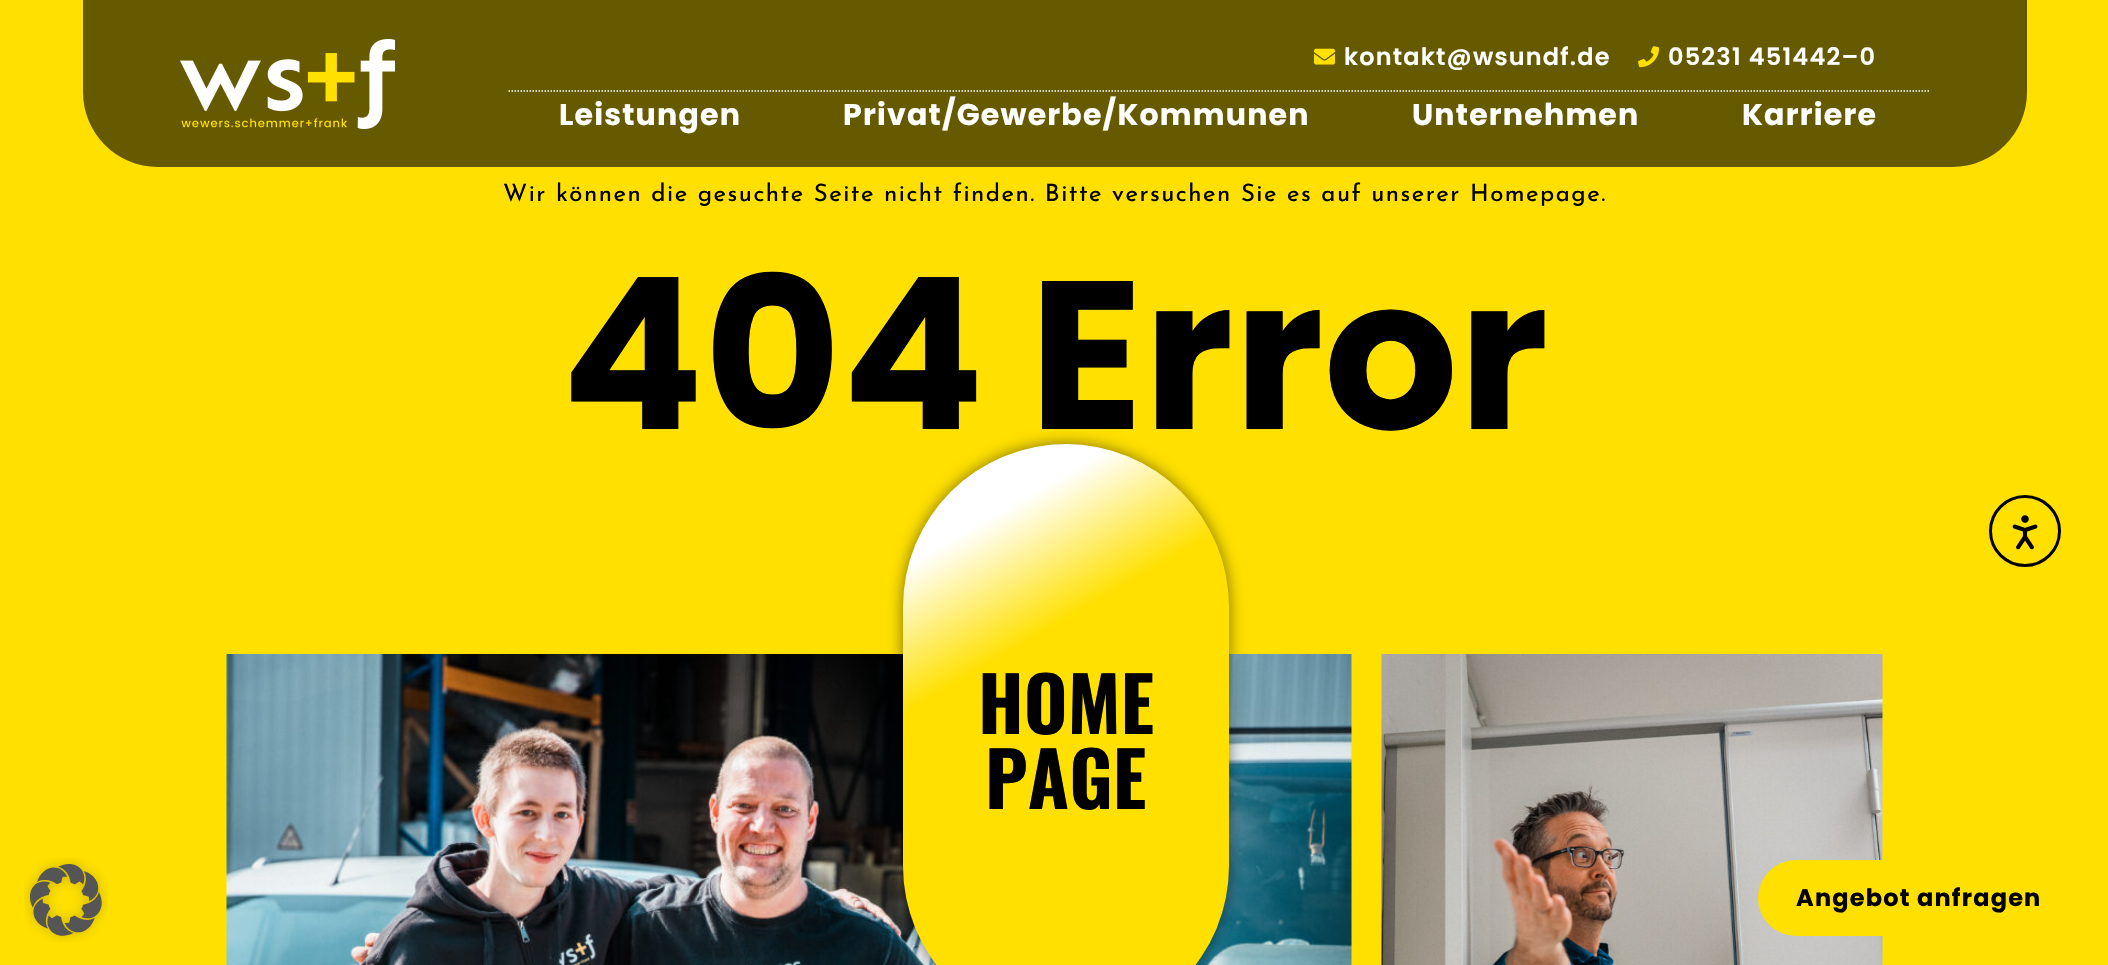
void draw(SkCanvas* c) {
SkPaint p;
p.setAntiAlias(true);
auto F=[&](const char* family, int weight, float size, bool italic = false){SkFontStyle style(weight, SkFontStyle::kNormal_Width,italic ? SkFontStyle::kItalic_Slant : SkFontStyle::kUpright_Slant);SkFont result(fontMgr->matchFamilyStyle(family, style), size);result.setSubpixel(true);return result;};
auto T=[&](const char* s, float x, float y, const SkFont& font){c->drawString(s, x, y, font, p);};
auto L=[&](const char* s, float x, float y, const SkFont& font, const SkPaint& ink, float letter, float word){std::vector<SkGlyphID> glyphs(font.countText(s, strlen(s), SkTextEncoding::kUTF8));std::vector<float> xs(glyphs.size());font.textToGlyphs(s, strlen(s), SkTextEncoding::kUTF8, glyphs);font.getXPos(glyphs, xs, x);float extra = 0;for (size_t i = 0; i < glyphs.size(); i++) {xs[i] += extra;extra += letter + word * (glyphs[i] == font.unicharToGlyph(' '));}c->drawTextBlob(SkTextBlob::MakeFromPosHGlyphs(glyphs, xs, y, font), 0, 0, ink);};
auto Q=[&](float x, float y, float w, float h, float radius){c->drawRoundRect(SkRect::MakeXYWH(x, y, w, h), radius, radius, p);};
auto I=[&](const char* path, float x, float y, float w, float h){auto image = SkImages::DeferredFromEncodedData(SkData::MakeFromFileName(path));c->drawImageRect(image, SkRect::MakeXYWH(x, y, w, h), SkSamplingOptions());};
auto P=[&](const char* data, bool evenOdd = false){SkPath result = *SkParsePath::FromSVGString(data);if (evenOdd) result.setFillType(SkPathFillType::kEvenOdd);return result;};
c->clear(0xffffe000);
p.setColor(0xff665a00);
c->drawPath(P("M83 0h1944v92c0 41.5-33.5 75-75 75h-1794c-41.5 0-75-33.5-75-75z"),p);
I("1.png",1314,48,21,17);
auto f1 = F("Poppins",600,24);
p.setColor(0xffffffff);
L("kontakt@wsundf.de",1344,65,f1,p,1.2,0);
I("2.png",1638,46,21,22);
L("05231 451442–0",1668,65,f1,p,1.2,0);
I("3.png",180,39,215,90);
p.setStroke(true);
p.setStrokeWidth(1.5);
p.setPathEffect(SkDashPathEffect::Make({{1.5f,1.5f}}, 0));
c->drawPath(P("M508.5 91h1420.5"),p);
p.setPathEffect(nullptr);
auto f2 = F("Poppins",700,30);
p.setStroke(false);
L("Leistungen",559,125,f2,p,1.2,0);
L("Privat/Gewerbe/Kommunen",843,125,f2,p,1.2,0);
L("Unternehmen",1412,125,f2,p,1.2,0);
L("Karriere",1742,125,f2,p,1.2,0);
auto f3 = F("Josefin Sans",400,24);
p.setColor(0xff000000);
L("Wir können die gesuchte Seite nicht finden. Bitte versuchen Sie es auf unserer Homepage.",503,201,f3,p,1.5,0);
auto f4 = F("Poppins",700,211);
T("404 Error",561,429,f4);
I("4.png",226,654,1126,311);
I("5.png",1381,654,502,311);
p.setColor(0x80000000);
p.setMaskFilter(SkMaskFilter::MakeBlur(kNormal_SkBlurStyle, 7.5));
c->drawRoundRect(SkRect::MakeXYWH(903,444,326,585),163,163,p);
p.setMaskFilter(nullptr);
{
const SkColor colors[] = {0xffffffff,0xffffe000};
const float stops[] = {.16,.35};
const SkPoint ends[] = {{898,447}, {1233,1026}};
p.setShader(SkGradientShader::MakeLinear(ends, colors, stops, 2, SkTileMode::kClamp));
p.setAlpha(255);
}
Q(903,444,326,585,163);
auto f5 = F("Oswald",700,75);
p.setShader(nullptr);
p.setColor(0xff000000);
T("HOME",978,734,f5);
T("PAGE",985,809,f5);
p.setStroke(true);
p.setStrokeWidth(3);
c->drawCircle(2025,531,34.5,p);
I("6.png",2012,515,26,35);
I("7.png",24,858,84,84);
p.setStroke(false);
p.setColor(0xffffe000);
Q(1758,860,321,76,38);
auto f6 = F("Poppins",700,24);
p.setColor(0xff000000);
L("Angebot anfragen",1796,906,f6,p,1.2,0);
}
